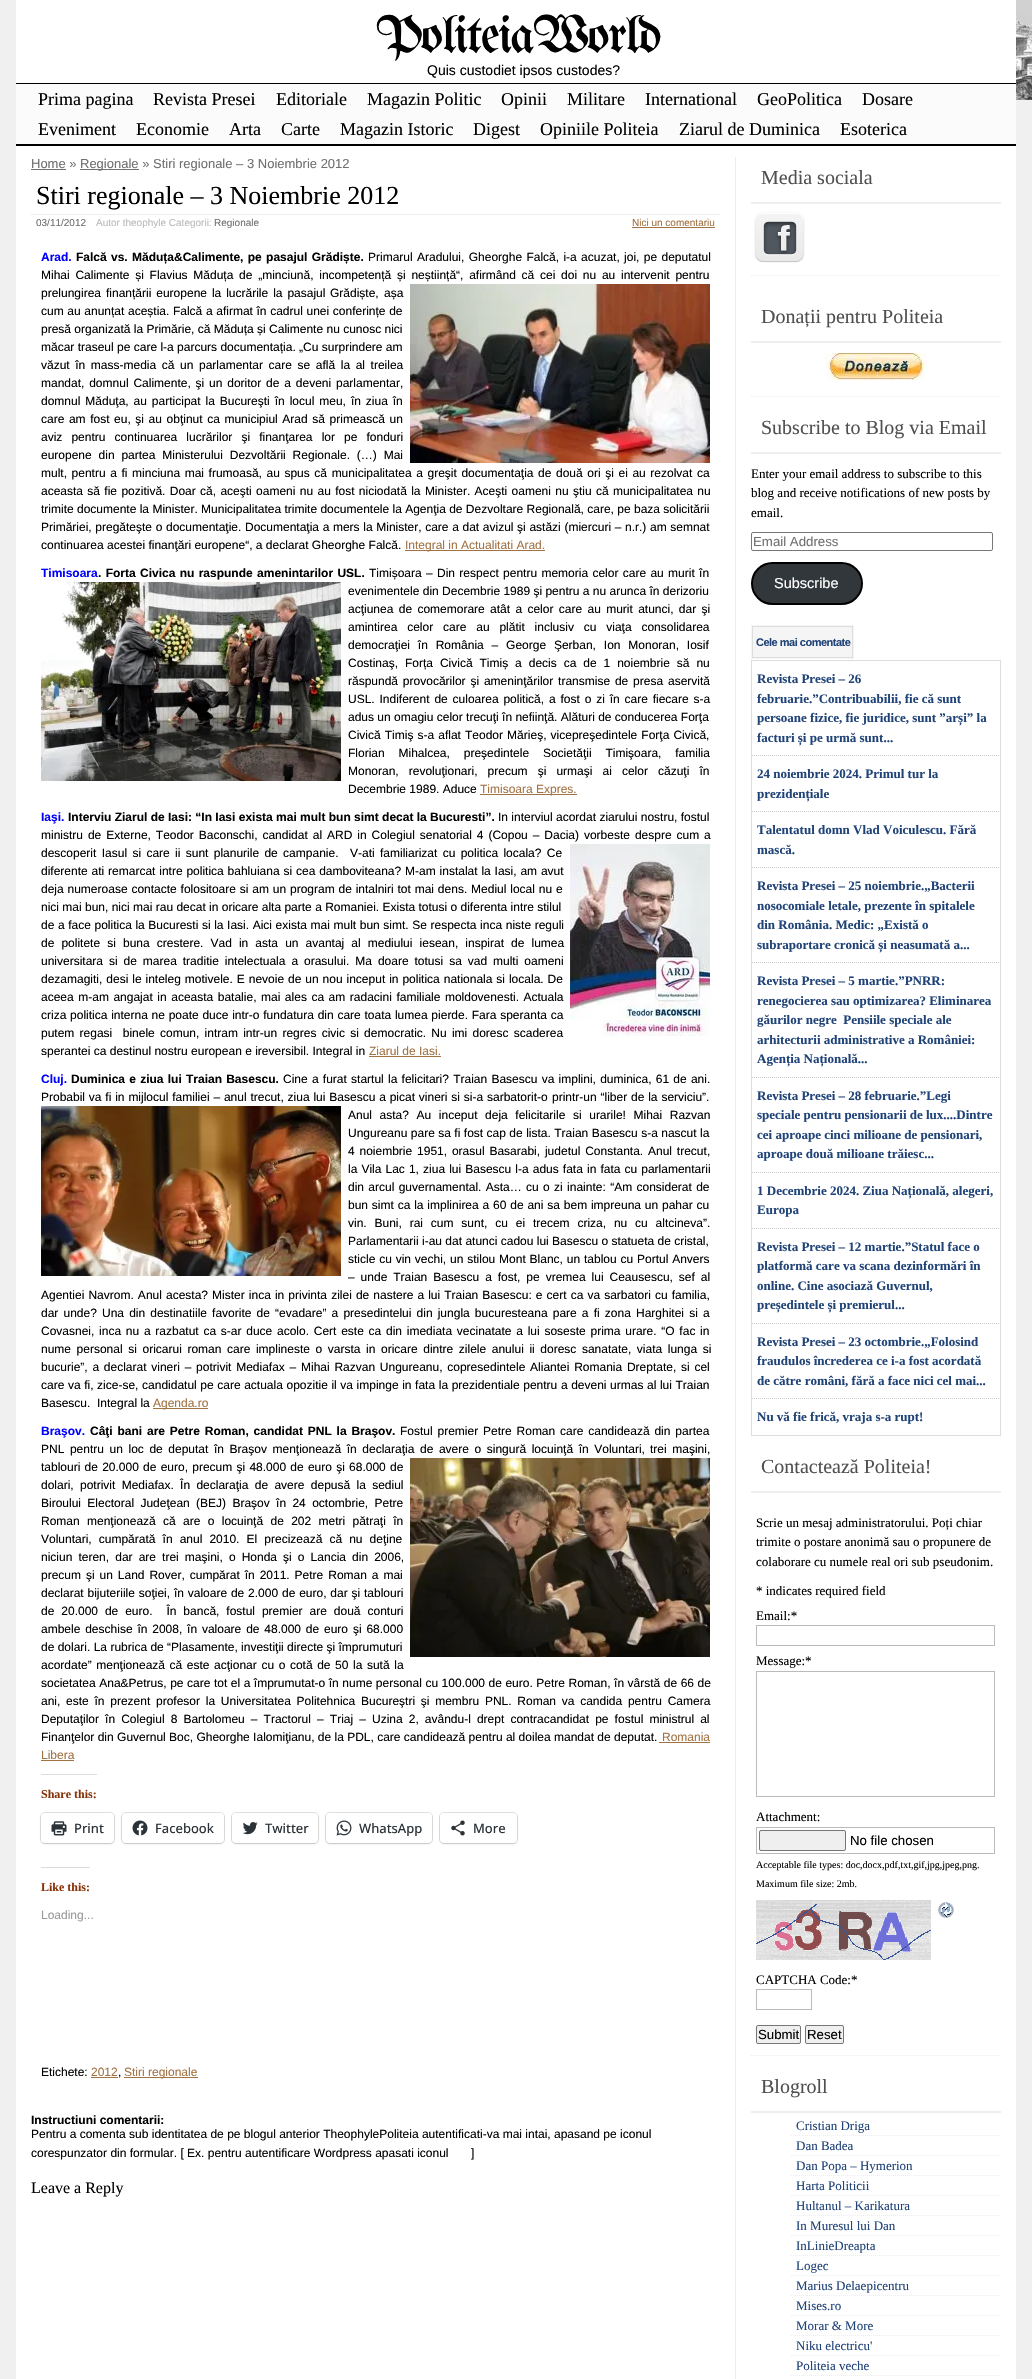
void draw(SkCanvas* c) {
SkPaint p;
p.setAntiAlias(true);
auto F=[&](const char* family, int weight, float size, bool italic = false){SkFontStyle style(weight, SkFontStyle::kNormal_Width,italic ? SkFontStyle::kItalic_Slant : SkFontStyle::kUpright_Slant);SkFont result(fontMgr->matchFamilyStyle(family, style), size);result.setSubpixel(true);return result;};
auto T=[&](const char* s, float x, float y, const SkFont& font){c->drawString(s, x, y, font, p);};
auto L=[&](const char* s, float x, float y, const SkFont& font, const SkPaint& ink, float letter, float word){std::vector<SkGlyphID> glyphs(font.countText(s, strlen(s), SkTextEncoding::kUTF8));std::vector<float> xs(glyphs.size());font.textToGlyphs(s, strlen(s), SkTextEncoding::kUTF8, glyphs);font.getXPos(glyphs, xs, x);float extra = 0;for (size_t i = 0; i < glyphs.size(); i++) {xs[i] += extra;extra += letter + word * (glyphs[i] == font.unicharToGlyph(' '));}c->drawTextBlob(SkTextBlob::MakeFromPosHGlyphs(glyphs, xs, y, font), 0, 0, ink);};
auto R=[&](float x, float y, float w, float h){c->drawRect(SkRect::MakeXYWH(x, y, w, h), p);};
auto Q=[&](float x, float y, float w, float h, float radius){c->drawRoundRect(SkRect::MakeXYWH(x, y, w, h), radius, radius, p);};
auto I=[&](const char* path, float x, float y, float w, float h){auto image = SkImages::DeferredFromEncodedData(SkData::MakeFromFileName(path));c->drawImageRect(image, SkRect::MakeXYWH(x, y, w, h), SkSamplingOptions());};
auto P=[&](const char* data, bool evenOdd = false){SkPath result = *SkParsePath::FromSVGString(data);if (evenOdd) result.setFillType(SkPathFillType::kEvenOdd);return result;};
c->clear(0xfff0f0f0);
I("1.png",1016,0,16,100);
p.setColor(0xffffffff);
R(16,0,1000,2379);
auto f1 = F("UnifrakturMaguntia",400,53);
p.setColor(0xff000000);
L("PoliteiaWorld",376,52,f1,p,-2,0);
auto f2 = F("Liberation Sans",400,14);
T("Quis custodiet ipsos custodes?",427,75,f2);
p.setColor(0xfffbfbfb);
R(16,84,1000,60);
p.setColor(0xff000000);
R(16,83,1000,1);
R(16,144,1000,2);
auto f3 = F("Liberation Serif",400,18);
T("Prima pagina",38,105,f3);
T("Revista Presei",153,105,f3);
T("Editoriale",276,105,f3);
T("Magazin Politic",367,105,f3);
T("Opinii",501,105,f3);
T("Militare",567,105,f3);
T("International",645,105,f3);
T("GeoPolitica",757,105,f3);
T("Dosare",862,105,f3);
T("Eveniment",38,135,f3);
T("Economie",136,135,f3);
T("Arta",229,135,f3);
T("Carte",281,135,f3);
T("Magazin Istoric",340,135,f3);
T("Digest",473,135,f3);
T("Opiniile Politeia",540,135,f3);
T("Ziarul de Duminica",679,135,f3);
T("Esoterica",840,135,f3);
auto f4 = F("Liberation Sans",400,13);
p.setColor(0xff707070);
T("Home »",31,168,f4);
R(31,169,35,1);
R(80,169,59,1);
T("Regionale » Stiri regionale – 3 Noiembrie 2012",80,168,f4);
auto f5 = F("Liberation Serif",400,26);
p.setColor(0xff000000);
T("Stiri regionale – 3 Noiembrie 2012",36,204,f5);
p.setColor(0xffeeeeee);
R(31,214,689,1);
auto f6 = F("Liberation Sans",400,10);
p.setColor(0xff707070);
T("03/11/2012",36,226,f6);
p.setColor(0xffbbbbbb);
T("Autor theophyle Categorii:",96,226,f6);
p.setColor(0xff707070);
T("Regionale",214,226,f6);
p.setColor(0xffa17244);
T("Nici un comentariu",632,226,f6);
R(632,227,83,1);
auto f7 = F("Liberation Sans",700,12);
p.setColor(0xff0000ff);
T("Arad.",41,261,f7);
p.setColor(0xff000000);
L("Falcă vs. Măduța&Calimente, pe pasajul Grădiște.",76,261,f7,p,0,1);
auto f8 = F("Liberation Sans",400,12);
L("Primarul Aradului, Gheorghe Falcă, i-a acuzat, joi, pe deputatul",368,261,f8,p,0,1);
L("Mihai Calimente și Flavius Măduța de „minciună, incompetență și neștiință“, afirmând că cei doi nu au intervenit pentru",41,279,f8,p,0,2.4);
L("prelungirea finanțării europene la lucrările la pasajul",41,297,f8,p,0,1.6);
L("Grădiște, așa",330,297,f8,p,0,2);
I("2.png",410,284,300,179);
L("cum au anunțat aceștia. Falcă a afirmat în cadrul unei conferințe de",41,315,f8,p,0,.3);
T("presă organizată la Primărie, că Măduța și Calimente nu cunosc nici",41,333,f8);
T("măcar traseul pe care l-a parcurs documentația. „Cu surprindere am",41,351,f8);
L("văzut în mass-media că un parlamentar care se află la al treilea",41,369,f8,p,0,2.25);
L("mandat, domnul Calimente, şi un doritor de a deveni parlamentar,",41,387,f8,p,0,1.5);
L("domnul Măduţa, au participat la Bucureşti în locul meu, în ziua în",41,405,f8,p,0,1.6);
L("care am fost eu, şi au obţinut ca municipiul Arad să primească un",41,423,f8,p,0,1.25);
L("aviz pentru continuarea lucrărilor şi finanţarea lor pe fonduri",41,441,f8,p,0,5.75);
L("europene din partea Ministerului Dezvoltării Regionale. (…) Mai",41,459,f8,p,0,3.5);
L("mult, pentru a fi minciuna mai frumoasă, au spus că municipalitatea a greşit documentaţia de două ori şi ei au rezolvat ca",41,477,f8,p,0,1.25);
L("aceasta să fie pozitivă. Doar că, aceşti oameni nu au fost niciodată la Minister. Aceşti oameni nu ştiu că municipalitatea nu",41,495,f8,p,0,1);
T("trimite documente la Minister. Municipalitatea trimite documentele la Agenţia de Dezvoltare Regională, care, pe baza solicitării",41,513,f8);
L("Primăriei, pregăteşte o documentaţie. Documentaţia a mers la Minister, care a dat avizul şi astăzi (miercuri – n.r.) am semnat",41,531,f8,p,0,.3);
T("continuarea acestei finanţări europene“, a declarat Gheorghe Falcă.",41,549,f8);
p.setColor(0xffa17244);
R(405,550,140,1);
T("Integral in Actualitati Arad.",405,549,f8);
p.setColor(0xff0000ff);
T("Timisoara",41,577,f7);
p.setColor(0xff000000);
L(". Forta Civica nu raspunde amenintarilor USL.",98,577,f7,p,0,1);
L("Timișoara – Din respect pentru memoria celor care au murit în",369,577,f8,p,0,1);
I("3.png",41,582,300,199);
T("evenimentele din Decembrie 1989 şi pentru a nu arunca în derizoriu",348,595,f8);
L("acţiunea de comemorare atât a celor care au murit atunci, dar şi",348,613,f8,p,0,2);
L("amintirea celor care au plătit inclusiv cu viaţa consolidarea",348,631,f8,p,0,6.5);
L("democraţiei în România – George Şerban, Ion Monoran, Iosif",348,649,f8,p,0,4.5);
L("Costinaş, Forța Civică Timiș a decis ca de 1 noiembrie să nu",348,667,f8,p,0,3.6);
L("răspundă provocărilor şi ameninţărilor transmise de presa aservită",348,685,f8,p,0,1.5);
L("USL. Indiferent de culoarea politică, a fost o zi în care fiecare s-a",348,703,f8,p,0,1.5);
T("adus un omagiu celor trecuţi în nefiinţă. Alături de conducerea Forţa",348,721,f8);
L("Civică Timiş s-a aflat Teodor Mărieş, vicepreşedintele Forţa Civică,",348,739,f8,p,0,.75);
L("Florian Mihalcea, preşedintele Societăţii Timişoara, familia",348,757,f8,p,0,10.5);
L("Monoran, revoluţionari, precum şi urmaşi ai celor căzuţi în",348,775,f8,p,0,6.75);
T("Decembrie 1989. Aduce",348,793,f8);
p.setColor(0xffa17244);
R(480,794,97,1);
T("Timisoara Expres.",480,793,f8);
p.setColor(0xff0000ff);
T("Iaşi.",41,821,f7);
p.setColor(0xff000000);
T("Interviu Ziarul de Iasi: “In Iasi exista mai mult bun simt decat la Bucuresti”.",68,821,f7);
T("In interviul acordat ziarului nostru, fostul",498,821,f8);
L("ministru de Externe, Teodor Baconschi, candidat al ARD in Colegiul senatorial 4 (Copou – Dacia) vorbeste despre cum a",41,839,f8,p,0,1.6);
L("descoperit Iasul si care ii sunt planurile de campanie.",41,857,f8,p,0,2);
L("V-ati familiarizat cu politica locala? Ce",350,857,f8,p,0,2);
I("4.png",570,844,140,192);
L("diferente ati remarcat intre politica bahluiana si cea damboviteana? M-am instalat la Iasi, am avut",41,875,f8,p,0,.5);
L("deja numeroase contacte folositoare si am un program de intalniri tot mai dens. Mediul local nu e",41,893,f8,p,0,.5);
T("nici mai bun, nici mai rau decat in oricare alta parte a Romaniei. Exista totusi o diferenta intre stilul",41,911,f8);
L("de a face politica la Bucuresti si la Iasi. Aici exista mai mult bun simt. Se respecta inca niste reguli",41,929,f8,p,0,.25);
L("de politete si buna crestere. Vad in asta un avantaj al mediului iesean, inspirat de lumea",41,947,f8,p,0,3.75);
L("universitara si de marea traditie intelectuala a orasului. Ma doare totusi sa vad multi oameni",41,965,f8,p,0,2.6);
L("dezamagiti, desi le inteleg motivele. E nevoie de un nou inceput in politica nationala si locala. De",41,983,f8,p,0,.6);
L("aceea m-am angajat in aceasta batalie, mai ales ca am radacini familiale moldovenesti. Actuala",41,1001,f8,p,0,1.2);
L("criza politica interna ne poate duce intr-o fundatura din care toata lumea pierde. Fara speranta ca",41,1019,f8,p,0,.4);
L("putem regasi  binele comun, intram intr-un regres civic si democratic. Nu imi doresc scaderea",41,1037,f8,p,0,1.9);
T("sperantei ca destinul nostru european e ireversibil. Integral in",41,1055,f8);
p.setColor(0xffa17244);
T("Ziarul de Iasi.",369,1055,f8);
R(369,1056,72,1);
p.setColor(0xff0000ff);
T("Cluj.",41,1083,f7);
p.setColor(0xff000000);
L("Duminica e ziua lui Traian Basescu.",71,1083,f7,p,0,.9);
L("Cine a furat startul la felicitari? Traian Basescu va implini, duminica, 61 de ani.",283,1083,f8,p,0,.9);
L("Probabil va fi in mijlocul familiei – anul trecut, ziua lui Basescu a picat vineri si si-a sarbatorit-o",41,1101,f8,p,0,.5);
L("printr-un “liber de la serviciu”.",552,1101,f8,p,0,.5);
I("5.png",41,1106,300,170);
L("Anul asta? Au inceput deja felicitarile si urarile! Mihai Razvan",348,1119,f8,p,0,4.25);
L("Ungureanu pare sa fi fost cap de lista. Traian Basescu s-a nascut la",348,1137,f8,p,0,.1);
L("4 noiembrie 1951, orasul Basarabi, judetul Constanta. Anul trecut,",348,1155,f8,p,0,1.5);
L("la Vila Lac 1, ziua lui Basescu l-a adus fata in fata cu parlamentarii",348,1173,f8,p,0,.75);
L("din arcul guvernamental. Asta… cu o zi inainte: “Am considerat de",348,1191,f8,p,0,1);
L("bun simt ca la implinirea a 60 de ani sa bem impreuna un pahar cu",348,1209,f8,p,0,.5);
L("vin. Buni, rai cum sunt, cu ei trecem criza, nu cu altcineva”.",348,1227,f8,p,0,4.5);
T("Parlamentarii i-au dat atunci cadou lui Basescu o statueta de cristal,",348,1245,f8);
L("sticle cu vin vechi, un stilou Mont Blanc, un tablou cu Portul Anvers",348,1263,f8,p,0,.5);
L("– unde Traian Basescu a fost, pe vremea lui Ceausescu, sef al",348,1281,f8,p,0,2.6);
L("Agentiei Navrom. Anul acesta? Mister inca in privinta zilei de nastere a lui Traian Basescu: e cert ca va sarbatori cu familia,",41,1299,f8,p,0,.75);
L("dar unde? Una din destinatiile favorite de “evadare” a presedintelui din jungla bucuresteana pare a fi zona Harghitei si a",41,1317,f8,p,0,1.8);
L("Covasnei, inca nu a razbatut ca s-ar duce acolo. Cert este ca din imediata vecinatate a lui soseste prima urare. “O fac in",41,1335,f8,p,0,1.4);
L("nume personal si oricarui roman care implineste o varsta in oricare dintre zilele anului ii doresc sanatate, viata lunga si",41,1353,f8,p,0,2.25);
L("bucurie”, a declarat vineri – potrivit Mediafax – Mihai Razvan Ungureanu, copresedintele Aliantei Romania Dreptate, si cel",41,1371,f8,p,0,1.4);
L("care va fi, zice-se, candidatul pe care actuala opozitie il va impinge in fata la prezidentiale pentru a deveni urmas al lui Traian",41,1389,f8,p,0,.25);
T("Basescu.  Integral la",41,1407,f8);
p.setColor(0xffa17244);
R(153,1408,55,1);
T("Agenda.ro",153,1407,f8);
p.setColor(0xff0000ff);
T("Braşov.",41,1435,f7);
p.setColor(0xff000000);
L("Câţi bani are Petre Roman, candidat PNL la Braşov.",90,1435,f7,p,0,1.5);
L("Fostul premier Petre Roman care candidează din partea",400,1435,f8,p,0,1.5);
L("PNL pentru un loc de deputat în Braşov menţionează în declaraţia de avere o singură locuinţă în Voluntari,",41,1453,f8,p,0,2.25);
L("trei maşini,",650,1453,f8,p,0,2.25);
L("tablouri de 20.000 de euro, precum şi 48.000 de euro şi 68.000 de",41,1471,f8,p,0,.9);
I("6.png",410,1458,300,199);
L("dolari, potrivit Mediafax. În declaraţia de avere depusă la sediul",41,1489,f8,p,0,3);
L("Biroului Electoral Judeţean (BEJ) Braşov în 24 octombrie, Petre",41,1507,f8,p,0,3);
L("Roman menţionează că are o locuinţă de 202 metri pătraţi în",41,1525,f8,p,0,4);
L("Voluntari, cumpărată în anul 2010. El precizează că nu deţine",41,1543,f8,p,0,3.75);
L("niciun teren, dar are trei maşini, o Honda şi o Lancia din 2006,",41,1561,f8,p,0,2.75);
L("precum şi un Land Rover, cumpărat în 2011. Petre Roman a mai",41,1579,f8,p,0,1.6);
L("declarat bijuteriile soţiei, în valoare de 2.000 de euro, dar şi tablouri",41,1597,f8,p,0,.5);
L("de 20.000 de euro.  În bancă, fostul premier are două conturi",41,1615,f8,p,0,3.6);
L("ambele deschise în 2008, în valoare de 48.000 de euro şi 68.000",41,1633,f8,p,0,1.5);
T("de dolari. La rubrica de “Plasamente, investiţii directe şi împrumuturi",41,1651,f8);
L("acordate” menţionează că este acţionar cu o cotă de 50 la sută la",41,1669,f8,p,0,1.25);
L("societatea Ana&Petrus, pe care tot el a împrumutat-o în nume personal cu 100.000 de euro. Petre Roman, în vârstă de 66 de",41,1687,f8,p,0,.2);
L("ani, este în prezent profesor la Universitatea Politehnica Bucureştri şi membru PNL. Roman va candida pentru Camera",41,1705,f8,p,0,2.4);
L("Deputaţilor în Colegiul 8 Bartolomeu – Tractorul – Triaj – Uzina 2, avându-l drept contracandidat pe fostul ministrul al",41,1723,f8,p,0,2.75);
T("Finanţelor din Guvernul Boc, Gheorghe Ialomiţianu, de la PDL, care candidează pentru al doilea mandat de deputat.",41,1741,f8);
p.setColor(0xffa17244);
T("Romania",662,1741,f8);
R(659,1742,51,1);
T("Libera",41,1759,f8);
R(41,1760,33,1);
p.setColor(0xffdcdcde);
R(41,1774,56,1);
auto f9 = F("Liberation Serif",700,12);
p.setColor(0xff873408);
T("Share this:",41,1798,f9);
p.setStroke(true);
p.setStrokeWidth(1);
p.setColor(0xffe0e0e0);
c->drawRoundRect(SkRect::MakeXYWH(40.5,1812.5,74,31),4.5,4.5,p);
p.setStroke(false);
p.setColor(0x1f000000);
p.setMaskFilter(SkMaskFilter::MakeBlur(kNormal_SkBlurStyle, 1));
c->drawRoundRect(SkRect::MakeXYWH(41,1814,73,30),4,4,p);
p.setMaskFilter(nullptr);
p.setColor(0xffffffff);
Q(41,1813,73,30,4);
I("7.png",51,1821,16,15);
auto f10 = F("Open Sans",500,13);
p.setColor(0xff2c3338);
T("Print",74,1833,f10);
p.setStroke(true);
p.setColor(0xffe0e0e0);
c->drawRoundRect(SkRect::MakeXYWH(121.5,1812.5,103,31),4.5,4.5,p);
p.setStroke(false);
p.setColor(0x1f000000);
p.setMaskFilter(SkMaskFilter::MakeBlur(kNormal_SkBlurStyle, 1));
c->drawRoundRect(SkRect::MakeXYWH(122,1814,102,30),4,4,p);
p.setMaskFilter(nullptr);
p.setColor(0xffffffff);
Q(122,1813,102,30,4);
I("8.png",132,1820,16,16);
p.setColor(0xff2c3338);
T("Facebook",155,1833,f10);
p.setStroke(true);
p.setColor(0xffe0e0e0);
c->drawRoundRect(SkRect::MakeXYWH(231.5,1812.5,87,31),4.5,4.5,p);
p.setStroke(false);
p.setColor(0x1f000000);
p.setMaskFilter(SkMaskFilter::MakeBlur(kNormal_SkBlurStyle, 1));
c->drawRoundRect(SkRect::MakeXYWH(232,1814,86,30),4,4,p);
p.setMaskFilter(nullptr);
p.setColor(0xffffffff);
Q(232,1813,86,30,4);
I("9.png",242,1822,16,13);
p.setColor(0xff2c3338);
T("Twitter",265,1833,f10);
p.setStroke(true);
p.setColor(0xffe0e0e0);
c->drawRoundRect(SkRect::MakeXYWH(325.5,1812.5,107,31),4.5,4.5,p);
p.setStroke(false);
p.setColor(0x1f000000);
p.setMaskFilter(SkMaskFilter::MakeBlur(kNormal_SkBlurStyle, 1));
c->drawRoundRect(SkRect::MakeXYWH(326,1814,106,30),4,4,p);
p.setMaskFilter(nullptr);
p.setColor(0xffffffff);
Q(326,1813,106,30,4);
I("10.png",336,1820,16,16);
p.setColor(0xff2c3338);
T("WhatsApp",359,1833,f10);
p.setStroke(true);
p.setColor(0xffe0e0e0);
c->drawRoundRect(SkRect::MakeXYWH(439.5,1812.5,78,31),4.5,4.5,p);
p.setStroke(false);
p.setColor(0x1f000000);
p.setMaskFilter(SkMaskFilter::MakeBlur(kNormal_SkBlurStyle, 1));
c->drawRoundRect(SkRect::MakeXYWH(440,1814,77,30),4,4,p);
p.setMaskFilter(nullptr);
p.setColor(0xffffffff);
Q(440,1813,77,30,4);
I("11.png",451,1820,14,16);
p.setColor(0xff2c3338);
T("More",473,1833,f10);
p.setColor(0xffdcdcde);
R(41,1867,49,1);
p.setColor(0xff873408);
T("Like this:",41,1891,f9);
p.setColor(0xff999999);
T("Loading...",41,1919,f8);
p.setColor(0xff000000);
T("Etichete:",41,2076,f8);
p.setColor(0xffa17244);
T("2012",91,2076,f8);
R(91,2077,27,1);
p.setColor(0xff000000);
T(",",118,2076,f8);
p.setColor(0xffa17244);
R(124,2077,74,1);
T("Stiri regionale",124,2076,f8);
p.setColor(0xff000000);
T("Instructiuni comentarii:",31,2124,f7);
T("Pentru a comenta sub identitatea de pe blogul anterior TheophylePoliteia autentificati-va mai intai, apasand pe iconul",31,2138,f8);
T("corespunzator din formular. [ Ex. pentru autentificare Wordpress apasati iconul",31,2157,f8);
T("]",471,2157,f8);
auto f11 = F("Liberation Serif",400,16);
T("Leave a Reply",31,2193,f11);
p.setColor(0xffeeeeee);
R(735,157,1,2222);
R(751,202,250,2);
auto f12 = F("Liberation Serif",400,20);
p.setColor(0xff505050);
T("Media sociala",761,184,f12);
p.setStroke(true);
p.setColor(0xffeeeeee);
p.setPathEffect(SkDashPathEffect::Make({{1,1}}, 0));
c->drawPath(P("M751 275.5h250"),p);
p.setPathEffect(nullptr);
I("12.png",754,212,51,51);
p.setStroke(false);
R(751,341,250,2);
p.setColor(0xff505050);
T("Donații pentru Politeia",761,323,f12);
p.setStroke(true);
p.setColor(0xffeeeeee);
p.setPathEffect(SkDashPathEffect::Make({{1,1}}, 0));
c->drawPath(P("M751 396.5h250"),p);
p.setPathEffect(nullptr);
I("13.png",825,353,102,27);
p.setStroke(false);
R(751,452,250,2);
p.setColor(0xff505050);
T("Subscribe to Blog via Email",761,434,f12);
auto f13 = F("Liberation Serif",400,13);
p.setColor(0xff000000);
T("Enter your email address to subscribe to this",751,478,f13);
T("blog and receive notifications of new posts by",751,497,f13);
T("email.",751,517,f13);
p.setStroke(true);
p.setColor(0xff767676);
c->drawRoundRect(SkRect::MakeXYWH(751.5,532.5,241,18),1.5,1.5,p);
auto f14 = F("Liberation Sans",400,13.25);
p.setStroke(false);
p.setColor(0xff707070);
T("Email Address",753,546,f14);
p.setColor(0xff32373c);
c->drawRoundRect(SkRect::MakeXYWH(752,563,110,41),20.5,20.5,p);
p.setStroke(true);
p.setStrokeWidth(2);
p.setColor(0xff000000);
c->drawRoundRect(SkRect::MakeXYWH(752,563,110,41),20.5,20.5,p);
auto f15 = F("Liberation Sans",400,14.5);
p.setStroke(false);
p.setColor(0xffffffff);
T("Subscribe",774,588,f15);
p.setStroke(true);
p.setStrokeWidth(1);
p.setColor(0xfff5f5f5);
c->drawRect(SkRect::MakeXYWH(751.5,625.5,102,33),p);
p.setStroke(false);
c->drawRect(SkRect::MakeXYWH(752.5,626.5,100,31),p);
p.setStroke(true);
p.setColor(0xffdddddd);
c->drawRect(SkRect::MakeXYWH(752.5,626.5,100,31),p);
auto f16 = F("Liberation Sans",700,11);
p.setStroke(false);
p.setColor(0xff204378);
L("Cele mai comentate",756,646,f16,p,-.5,0);
p.setStroke(true);
p.setColor(0xffdddddd);
c->drawRect(SkRect::MakeXYWH(751.5,660.5,249,775),p);
p.setColor(0xffcccccc);
p.setPathEffect(SkDashPathEffect::Make({{1,1}}, 0));
c->drawPath(P("M752 755.5h248"),p);
p.setPathEffect(nullptr);
auto f17 = F("Liberation Serif",700,13);
p.setStroke(false);
p.setColor(0xff204378);
T("Revista Presei – 26",757,683,f17);
T("februarie.”Contribuabilii, fie că sunt",757,703,f17);
T("persoane fizice, fie juridice, sunt ”arși” la",757,722,f17);
T("facturi și pe urmă sunt...",757,742,f17);
p.setStroke(true);
p.setColor(0xffcccccc);
p.setPathEffect(SkDashPathEffect::Make({{1,1}}, 0));
c->drawPath(P("M752 811.5h248"),p);
p.setPathEffect(nullptr);
p.setStroke(false);
p.setColor(0xff204378);
T("24 noiembrie 2024. Primul tur la",757,778,f17);
T("prezidențiale",757,798,f17);
p.setStroke(true);
p.setColor(0xffcccccc);
p.setPathEffect(SkDashPathEffect::Make({{1,1}}, 0));
c->drawPath(P("M752 867.5h248"),p);
p.setPathEffect(nullptr);
p.setStroke(false);
p.setColor(0xff204378);
T("Talentatul domn Vlad Voiculescu. Fără",757,834,f17);
T("mască.",757,854,f17);
p.setStroke(true);
p.setColor(0xffcccccc);
p.setPathEffect(SkDashPathEffect::Make({{1,1}}, 0));
c->drawPath(P("M752 962.5h248"),p);
p.setPathEffect(nullptr);
p.setStroke(false);
p.setColor(0xff204378);
T("Revista Presei – 25 noiembrie.„Bacterii",757,890,f17);
T("nosocomiale letale, prezente în spitalele",757,910,f17);
T("din România. Medic: „Există o",757,929,f17);
T("subraportare cronică și neasumată a...",757,949,f17);
p.setStroke(true);
p.setColor(0xffcccccc);
p.setPathEffect(SkDashPathEffect::Make({{1,1}}, 0));
c->drawPath(P("M752 1077.5h248"),p);
p.setPathEffect(nullptr);
p.setStroke(false);
p.setColor(0xff204378);
T("Revista Presei – 5 martie.”PNRR:",757,985,f17);
T("renegocierea sau optimizarea? Eliminarea",757,1005,f17);
T("găurilor negre  Pensiile speciale ale",757,1024,f17);
T("arhitecturii administrative a României:",757,1044,f17);
T("Agenția Națională...",757,1063,f17);
p.setStroke(true);
p.setColor(0xffcccccc);
p.setPathEffect(SkDashPathEffect::Make({{1,1}}, 0));
c->drawPath(P("M752 1172.5h248"),p);
p.setPathEffect(nullptr);
p.setStroke(false);
p.setColor(0xff204378);
T("Revista Presei – 28 februarie.”Legi",757,1100,f17);
T("speciale pentru pensionarii de lux....Dintre",757,1119,f17);
T("cei aproape cinci milioane de pensionari,",757,1139,f17);
T("aproape două milioane trăiesc...",757,1158,f17);
p.setStroke(true);
p.setColor(0xffcccccc);
p.setPathEffect(SkDashPathEffect::Make({{1,1}}, 0));
c->drawPath(P("M752 1228.5h248"),p);
p.setPathEffect(nullptr);
p.setStroke(false);
p.setColor(0xff204378);
T("1 Decembrie 2024. Ziua Națională, alegeri,",757,1195,f17);
T("Europa",757,1214,f17);
p.setStroke(true);
p.setColor(0xffcccccc);
p.setPathEffect(SkDashPathEffect::Make({{1,1}}, 0));
c->drawPath(P("M752 1323.5h248"),p);
p.setPathEffect(nullptr);
p.setStroke(false);
p.setColor(0xff204378);
T("Revista Presei – 12 martie.”Statul face o",757,1251,f17);
T("platformă care va scana dezinformări în",757,1270,f17);
T("online. Cine asociază Guvernul,",757,1290,f17);
T("președintele și premierul...",757,1309,f17);
p.setStroke(true);
p.setColor(0xffcccccc);
p.setPathEffect(SkDashPathEffect::Make({{1,1}}, 0));
c->drawPath(P("M752 1398.5h248"),p);
p.setPathEffect(nullptr);
p.setStroke(false);
p.setColor(0xff204378);
T("Revista Presei – 23 octombrie.„Folosind",757,1346,f17);
T("fraudulos încrederea ce i-a fost acordată",757,1365,f17);
T("de către români, fără a face nici cel mai...",757,1385,f17);
T("Nu vă fie frică, vraja s-a rupt!",757,1421,f17);
p.setColor(0xffeeeeee);
R(751,1491,250,2);
p.setColor(0xff505050);
T("Contactează Politeia!",761,1473,f12);
p.setStroke(true);
p.setColor(0xffeeeeee);
p.setPathEffect(SkDashPathEffect::Make({{1,1}}, 0));
c->drawPath(P("M751 2055.5h250"),p);
p.setPathEffect(nullptr);
p.setStroke(false);
p.setColor(0xff000000);
T("Scrie un mesaj administratorului. Poți chiar",756,1527,f13);
T("trimite o postare anonimă sau o propunere de",756,1546,f13);
T("colaborare cu numele real ori sub pseudonim.",756,1566,f13);
T("* indicates required field",756,1595,f13);
T("Email:*",756,1620,f13);
p.setStroke(true);
p.setColor(0xffbbbbbb);
c->drawRect(SkRect::MakeXYWH(756.5,1625.5,238,20),p);
p.setStroke(false);
p.setColor(0xff000000);
T("Message:*",756,1665,f13);
p.setStroke(true);
p.setColor(0xffbbbbbb);
c->drawRect(SkRect::MakeXYWH(756.5,1671.5,238,125),p);
p.setStroke(false);
p.setColor(0xff000000);
T("Attachment:",756,1821,f13);
p.setStroke(true);
p.setColor(0xffbbbbbb);
c->drawRect(SkRect::MakeXYWH(756.5,1827.5,238,26),p);
p.setStroke(false);
p.setColor(0xffefefef);
c->drawRoundRect(SkRect::MakeXYWH(759.5,1830.5,86,20),1.5,1.5,p);
p.setStroke(true);
p.setColor(0xff767676);
c->drawRoundRect(SkRect::MakeXYWH(759.5,1830.5,86,20),1.5,1.5,p);
p.setStroke(false);
p.setColor(0xff000000);
T("No file chosen",850,1845,f14);
auto f18 = F("Liberation Serif",400,10);
T("Acceptable file types: doc,docx,pdf,txt,gif,jpg,jpeg,png.",756,1868,f18);
T("Maximum file size: 2mb.",756,1887,f18);
I("14.png",756,1900,175,60);
I("15.png",938,1902,16,16);
T("CAPTCHA Code:*",756,1984,f13);
p.setStroke(true);
p.setColor(0xffbbbbbb);
c->drawRect(SkRect::MakeXYWH(756.5,1989.5,55,20),p);
p.setStroke(false);
p.setColor(0xffefefef);
c->drawRoundRect(SkRect::MakeXYWH(756.5,2025.5,44,18),1.5,1.5,p);
p.setStroke(true);
p.setColor(0xff767676);
c->drawRoundRect(SkRect::MakeXYWH(756.5,2025.5,44,18),1.5,1.5,p);
p.setStroke(false);
p.setColor(0xff000000);
T("Submit",758,2039,f14);
p.setColor(0xffefefef);
c->drawRoundRect(SkRect::MakeXYWH(805.5,2025.5,38,18),1.5,1.5,p);
p.setStroke(true);
p.setColor(0xff767676);
c->drawRoundRect(SkRect::MakeXYWH(805.5,2025.5,38,18),1.5,1.5,p);
p.setStroke(false);
p.setColor(0xff000000);
T("Reset",807,2039,f14);
p.setColor(0xffeeeeee);
R(751,2111,250,2);
p.setColor(0xff505050);
T("Blogroll",761,2093,f12);
p.setStroke(true);
p.setColor(0xffeeeeee);
p.setPathEffect(SkDashPathEffect::Make({{1,1}}, 0));
c->drawPath(P("M791 2135.5h210"),p);
p.setPathEffect(nullptr);
p.setStroke(false);
p.setColor(0xff204378);
T("Cristian Driga",796,2130,f13);
p.setStroke(true);
p.setColor(0xffeeeeee);
p.setPathEffect(SkDashPathEffect::Make({{1,1}}, 0));
c->drawPath(P("M791 2155.5h210"),p);
p.setPathEffect(nullptr);
p.setStroke(false);
p.setColor(0xff204378);
T("Dan Badea",796,2150,f13);
p.setStroke(true);
p.setColor(0xffeeeeee);
p.setPathEffect(SkDashPathEffect::Make({{1,1}}, 0));
c->drawPath(P("M791 2175.5h210"),p);
p.setPathEffect(nullptr);
p.setStroke(false);
p.setColor(0xff204378);
T("Dan Popa – Hymerion",796,2170,f13);
p.setStroke(true);
p.setColor(0xffeeeeee);
p.setPathEffect(SkDashPathEffect::Make({{1,1}}, 0));
c->drawPath(P("M791 2195.5h210"),p);
p.setPathEffect(nullptr);
p.setStroke(false);
p.setColor(0xff204378);
T("Harta Politicii",796,2190,f13);
p.setStroke(true);
p.setColor(0xffeeeeee);
p.setPathEffect(SkDashPathEffect::Make({{1,1}}, 0));
c->drawPath(P("M791 2215.5h210"),p);
p.setPathEffect(nullptr);
p.setStroke(false);
p.setColor(0xff204378);
T("Hultanul – Karikatura",796,2210,f13);
p.setStroke(true);
p.setColor(0xffeeeeee);
p.setPathEffect(SkDashPathEffect::Make({{1,1}}, 0));
c->drawPath(P("M791 2235.5h210"),p);
p.setPathEffect(nullptr);
p.setStroke(false);
p.setColor(0xff204378);
T("In Muresul lui Dan",796,2230,f13);
p.setStroke(true);
p.setColor(0xffeeeeee);
p.setPathEffect(SkDashPathEffect::Make({{1,1}}, 0));
c->drawPath(P("M791 2255.5h210"),p);
p.setPathEffect(nullptr);
p.setStroke(false);
p.setColor(0xff204378);
T("InLinieDreapta",796,2250,f13);
p.setStroke(true);
p.setColor(0xffeeeeee);
p.setPathEffect(SkDashPathEffect::Make({{1,1}}, 0));
c->drawPath(P("M791 2275.5h210"),p);
p.setPathEffect(nullptr);
p.setStroke(false);
p.setColor(0xff204378);
T("Logec",796,2270,f13);
p.setStroke(true);
p.setColor(0xffeeeeee);
p.setPathEffect(SkDashPathEffect::Make({{1,1}}, 0));
c->drawPath(P("M791 2295.5h210"),p);
p.setPathEffect(nullptr);
p.setStroke(false);
p.setColor(0xff204378);
T("Marius Delaepicentru",796,2290,f13);
p.setStroke(true);
p.setColor(0xffeeeeee);
p.setPathEffect(SkDashPathEffect::Make({{1,1}}, 0));
c->drawPath(P("M791 2315.5h210"),p);
p.setPathEffect(nullptr);
p.setStroke(false);
p.setColor(0xff204378);
T("Mises.ro",796,2310,f13);
p.setStroke(true);
p.setColor(0xffeeeeee);
p.setPathEffect(SkDashPathEffect::Make({{1,1}}, 0));
c->drawPath(P("M791 2335.5h210"),p);
p.setPathEffect(nullptr);
p.setStroke(false);
p.setColor(0xff204378);
T("Morar & More",796,2330,f13);
p.setStroke(true);
p.setColor(0xffeeeeee);
p.setPathEffect(SkDashPathEffect::Make({{1,1}}, 0));
c->drawPath(P("M791 2355.5h210"),p);
p.setPathEffect(nullptr);
p.setStroke(false);
p.setColor(0xff204378);
T("Niku electricu'",796,2350,f13);
p.setStroke(true);
p.setColor(0xffeeeeee);
p.setPathEffect(SkDashPathEffect::Make({{1,1}}, 0));
c->drawPath(P("M791 2375.5h210"),p);
p.setPathEffect(nullptr);
p.setStroke(false);
p.setColor(0xff204378);
T("Politeia veche",796,2370,f13);
}
